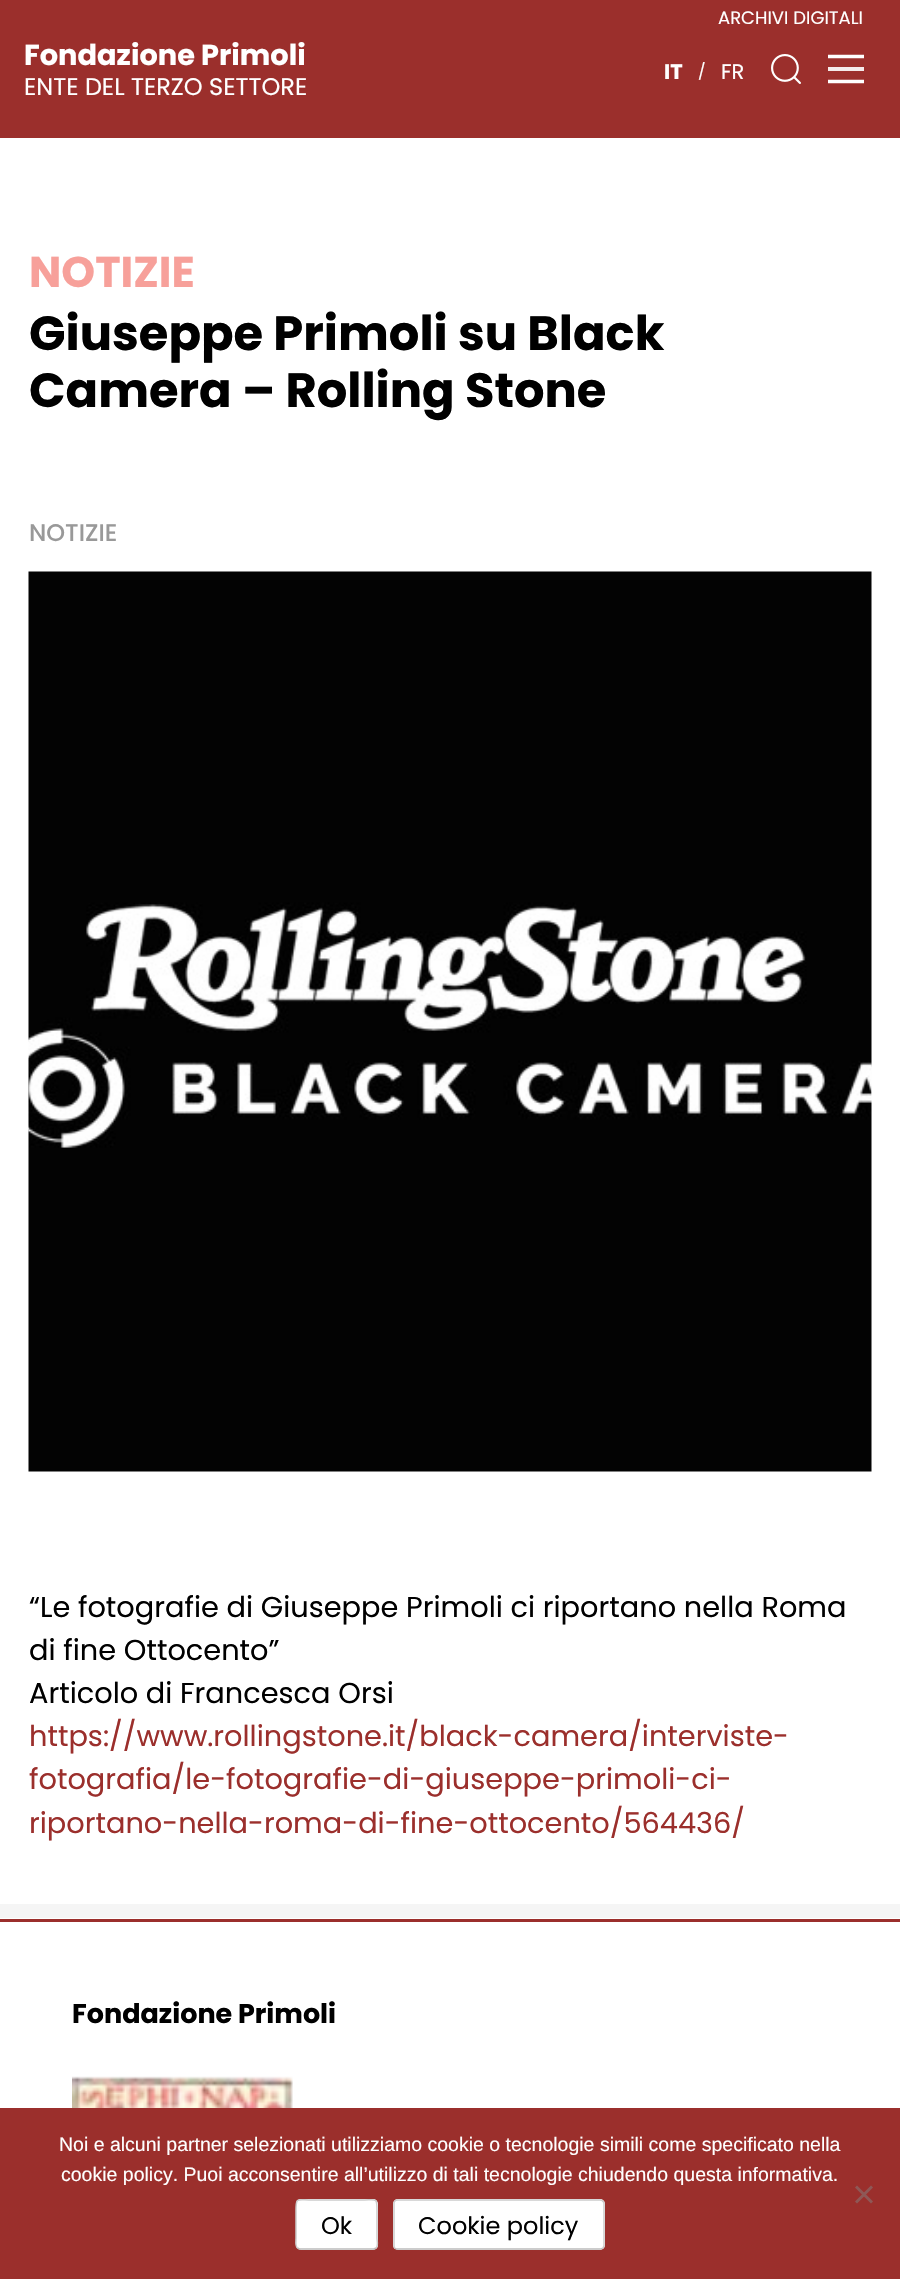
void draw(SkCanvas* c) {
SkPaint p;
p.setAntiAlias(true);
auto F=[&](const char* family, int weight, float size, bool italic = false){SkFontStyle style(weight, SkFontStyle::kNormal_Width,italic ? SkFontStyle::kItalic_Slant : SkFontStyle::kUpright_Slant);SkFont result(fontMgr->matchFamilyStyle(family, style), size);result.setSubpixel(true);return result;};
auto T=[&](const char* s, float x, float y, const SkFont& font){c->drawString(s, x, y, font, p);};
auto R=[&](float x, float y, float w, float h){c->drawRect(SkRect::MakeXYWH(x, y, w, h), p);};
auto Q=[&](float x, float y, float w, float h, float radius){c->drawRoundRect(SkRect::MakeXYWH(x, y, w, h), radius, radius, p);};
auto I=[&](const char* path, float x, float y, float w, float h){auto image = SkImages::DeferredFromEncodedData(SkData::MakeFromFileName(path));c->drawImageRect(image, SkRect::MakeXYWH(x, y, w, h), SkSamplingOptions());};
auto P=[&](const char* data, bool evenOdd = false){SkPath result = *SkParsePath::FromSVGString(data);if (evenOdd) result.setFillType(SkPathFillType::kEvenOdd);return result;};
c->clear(0xffffffff);
p.setColor(0xff9b2f2c);
R(0,0,900,138);
auto f1 = F("Poppins",700,28.8);
p.setColor(0xffffffff);
T("Fondazione Primoli",24,65,f1);
auto f2 = F("Poppins",400,24);
T("ENTE DEL TERZO SETTORE",24,95,f2);
auto f3 = F("Poppins",400,18);
T("ARCHIVI DIGITALI",718,24,f3);
auto f4 = F("Poppins",700,21);
T("IT",664,79,f4);
auto f5 = F("Poppins",400,16);
T("/",698,77,f5);
auto f6 = F("Poppins",400,21);
T("FR",721,79,f6);
I("1.png",771,54,30,30);
p.setStroke(true);
p.setStrokeWidth(3.6);
c->drawPath(P("M828 56.5h36"),p);
p.setStroke(false);
p.setColor(0xfff5eaea);
R(828,67,36,4);
p.setStroke(true);
p.setColor(0xffffffff);
c->drawPath(P("M828 81.5h36"),p);
auto f7 = F("Poppins",700,43);
p.setStroke(false);
p.setColor(0xfff7a09a);
T("NOTIZIE",29,287,f7);
auto f8 = F("Poppins",700,48);
p.setColor(0xff000000);
T("Giuseppe Primoli su Black",29,350,f8);
T("Camera – Rolling Stone",29,407,f8);
auto f9 = F("Poppins",500,24);
p.setColor(0xff999999);
T("NOTIZIE",29,541,f9);
I("2.png",28,571,844,901);
auto f10 = F("Poppins",400,28.8);
p.setColor(0xff000000);
T("“Le fotografie di Giuseppe Primoli ci riportano nella Roma",29,1617,f10);
T("di fine Ottocento”",29,1660,f10);
T("Articolo di Francesca Orsi",29,1703,f10);
p.setColor(0xff9b2f2c);
T("https://www.rollingstone.it/black-camera/interviste-",29,1746,f10);
T("fotografia/le-fotografie-di-giuseppe-primoli-ci-",29,1789,f10);
T("riportano-nella-roma-di-fine-ottocento/564436/",29,1833,f10);
p.setColor(0xfff5f5f5);
R(0,1904,900,14);
p.setColor(0xff9b2f2c);
R(0,1919,900,3);
auto f11 = F("Poppins",700,27);
p.setColor(0xff000000);
T("Fondazione Primoli",72,2023,f11);
I("3.png",72,2076,221,32);
p.setColor(0xff9b2f2c);
R(0,2108,900,171);
auto f12 = F("Liberation Sans",400,19.5);
p.setColor(0xffffffff);
T("Noi e alcuni partner selezionati utilizziamo cookie o tecnologie simili come specificato nella",59,2151,f12);
T("cookie policy. Puoi acconsentire all’utilizzo di tali tecnologie chiudendo questa informativa.",61,2181,f12);
p.setColor(0xff8e5856);
c->drawPath(P("M871 2185.5l2 2l-16 16l-2-2z"),p);
c->drawPath(P("M855 2187.5l2-2l16 16l-2 2z"),p);
p.setColor(0xffffffff);
Q(296,2199,82,51,5);
p.setStroke(true);
p.setStrokeWidth(1.5);
p.setColor(0xffbbbbbb);
c->drawPath(P("M376 2248l-2 1h-74.5l-2-1"),p);
p.setColor(0xffcccccc);
c->drawPath(P("M297.5 2248c-2.5-2-1.5-8-1.5-9.5v-28c0-14 1-10.5 16-10.5h49c15.5 0 16-3.5 16 10.5v28c0 1.5 1.5 7.5-1 9.5"),p);
p.setStroke(false);
p.setColor(0xff000000);
T("Ok",321,2234,f2);
p.setColor(0xffffffff);
Q(393,2199,212,51,5);
p.setStroke(true);
p.setColor(0xffbbbbbb);
c->drawPath(P("M602.5 2248c-.5 1-1.5 1-2.5 1h-202.5c-1 0-2 0-2.5-1"),p);
p.setColor(0xffcccccc);
c->drawPath(P("M395 2248c-1-.5-1-1.5-1-2.5v-42c0-1 0-2 1-2.5c.5-1 1.5-1 2.5-1h202.5c1 0 2 0 2.5 1c1 .5 1.5 1.5 1.5 2.5v42c0 1-.5 2-1.5 2.5"),p);
p.setStroke(false);
p.setColor(0xff000000);
T("Cookie policy",418,2234,f2);
}
